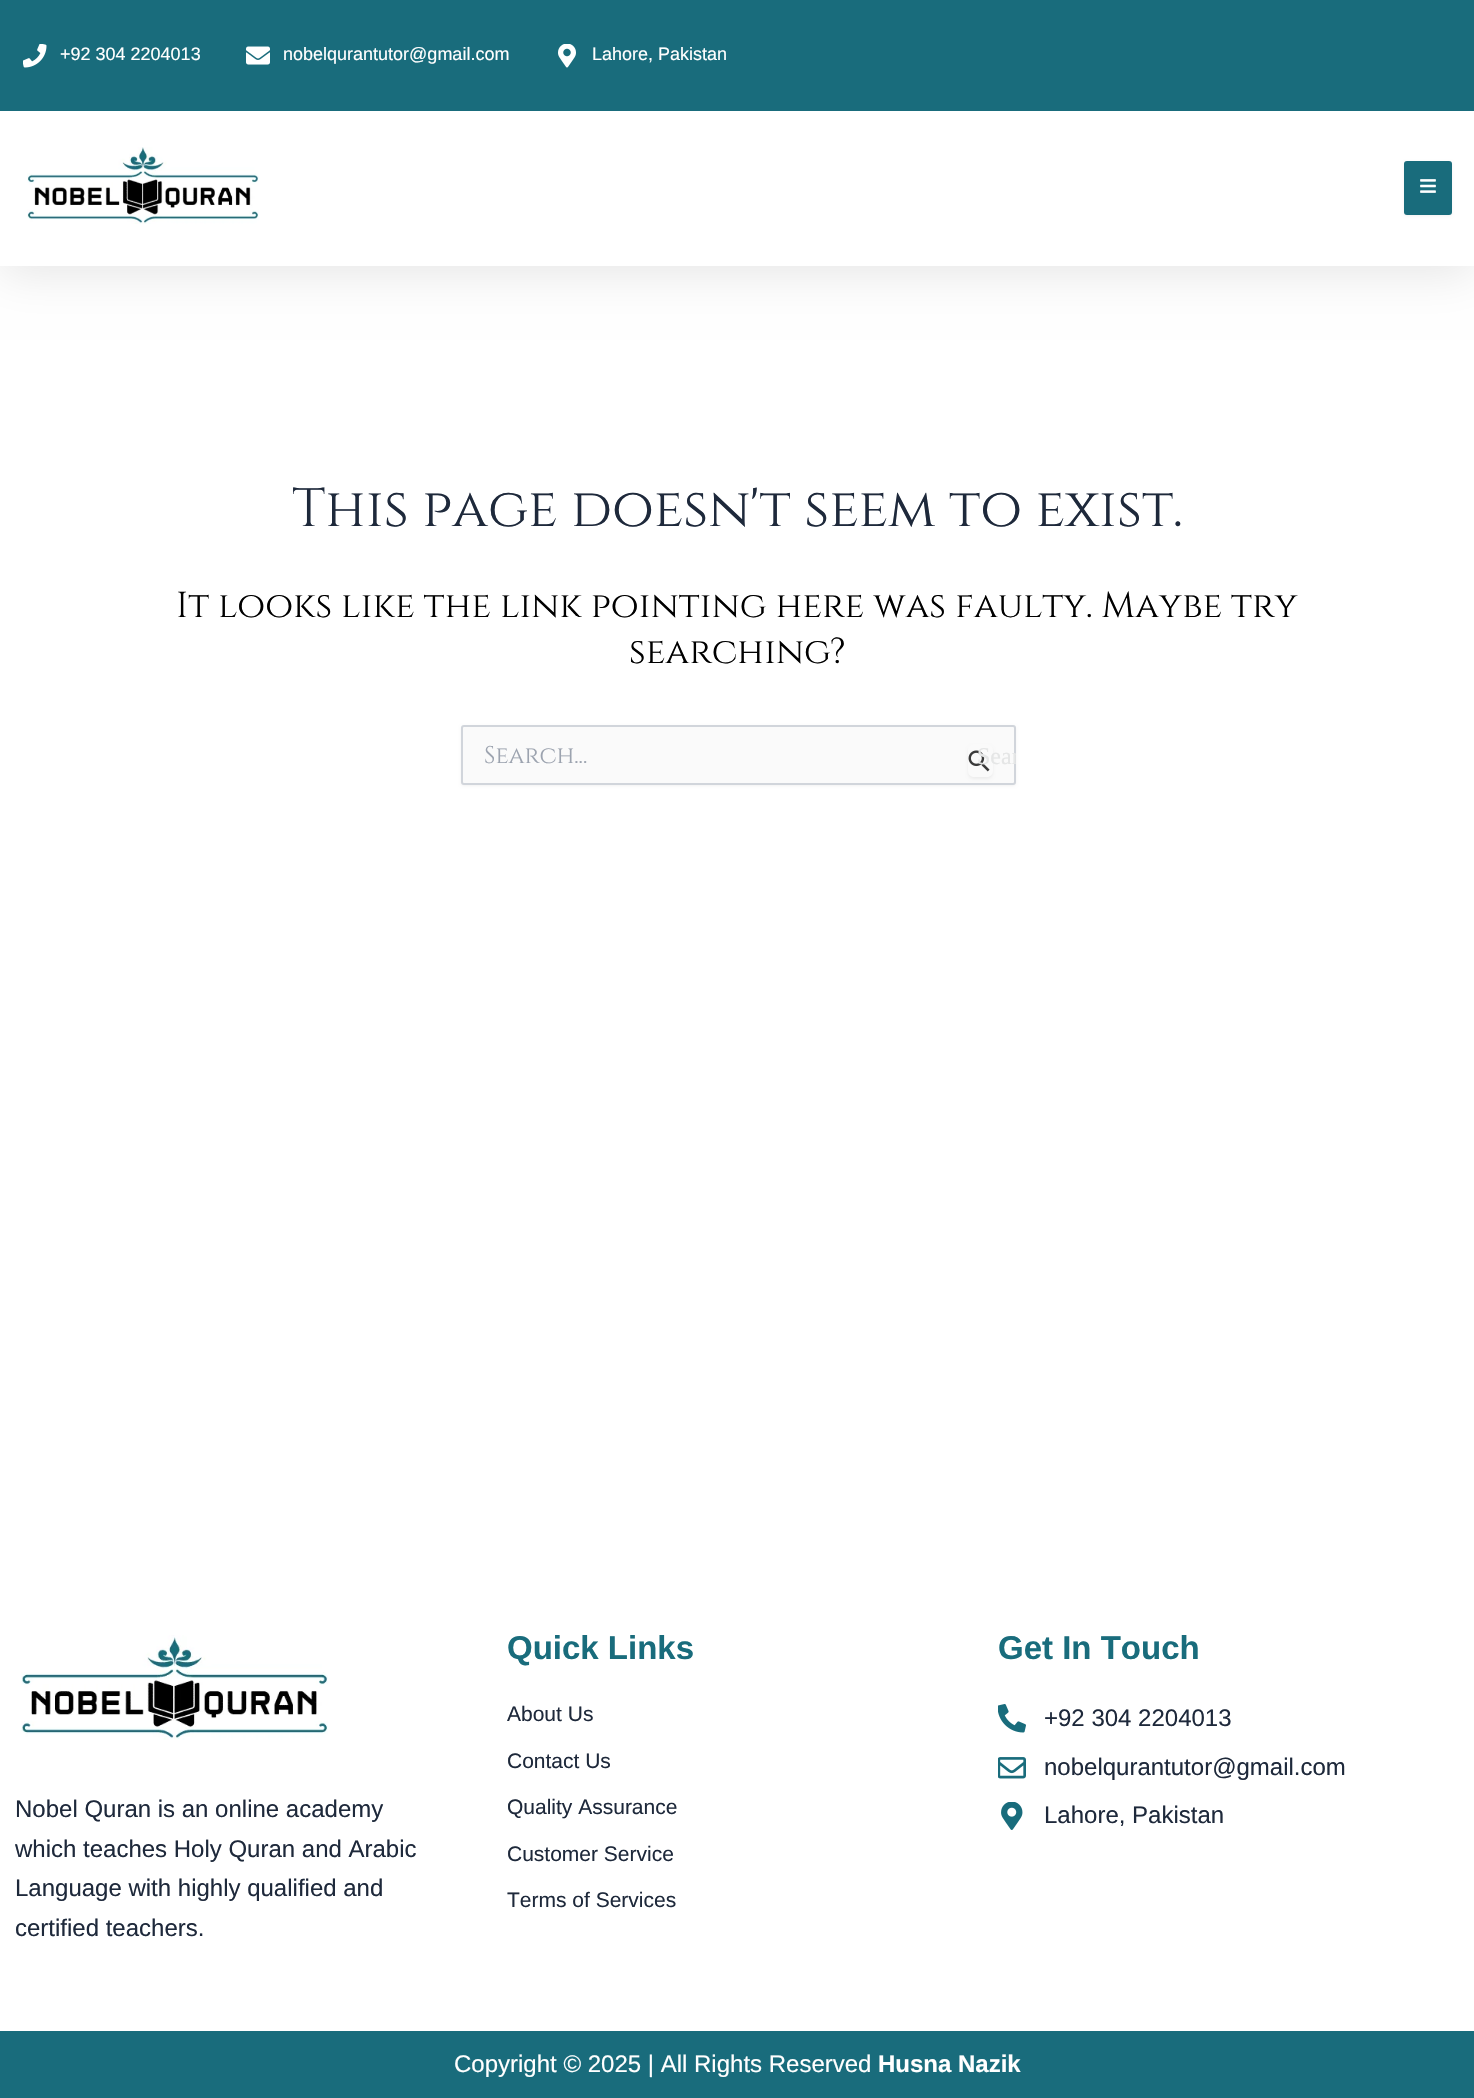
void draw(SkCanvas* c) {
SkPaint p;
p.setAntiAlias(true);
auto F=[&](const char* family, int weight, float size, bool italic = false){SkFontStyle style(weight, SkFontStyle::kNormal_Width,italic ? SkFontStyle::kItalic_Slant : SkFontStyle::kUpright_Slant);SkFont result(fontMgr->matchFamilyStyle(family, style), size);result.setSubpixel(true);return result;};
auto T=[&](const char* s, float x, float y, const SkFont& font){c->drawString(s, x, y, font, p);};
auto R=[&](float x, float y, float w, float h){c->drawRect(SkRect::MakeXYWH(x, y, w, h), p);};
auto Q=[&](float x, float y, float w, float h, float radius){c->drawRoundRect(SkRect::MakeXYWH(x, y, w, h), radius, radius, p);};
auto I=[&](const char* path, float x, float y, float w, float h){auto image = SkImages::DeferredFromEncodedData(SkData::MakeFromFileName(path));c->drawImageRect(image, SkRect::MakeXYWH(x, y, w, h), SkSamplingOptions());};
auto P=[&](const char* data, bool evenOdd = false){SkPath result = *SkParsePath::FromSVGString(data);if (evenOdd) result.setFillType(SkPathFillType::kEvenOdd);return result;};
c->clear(0xffffffff);
p.setColor(0x1a000000);
p.setMaskFilter(SkMaskFilter::MakeBlur(kNormal_SkBlurStyle, 22.5));
c->drawRect(SkRect::MakeXYWH(0,8,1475,265),p);
p.setMaskFilter(nullptr);
p.setColor(0xff196c7c);
R(0,0,1474,111);
I("1.png",23,44,24,24);
auto f1 = F("Liberation Sans",400,18);
p.setColor(0xffffffff);
T("+92 304 2204013",60,60,f1);
I("2.png",246,46,24,19);
T("nobelqurantutor@gmail.com",283,60,f1);
I("3.png",558,44,18,24);
T("Lahore, Pakistan",592,60,f1);
R(0,111,1474,155);
I("4.png",27,147,232,77);
p.setColor(0x0d000000);
p.setMaskFilter(SkMaskFilter::MakeBlur(kNormal_SkBlurStyle, 1.5));
c->drawRoundRect(SkRect::MakeXYWH(1404,162,48,54),3,3,p);
p.setMaskFilter(nullptr);
p.setColor(0xff196c7c);
Q(1404,161,48,54,3);
I("5.png",1420,179,16,14);
auto f2 = F("Cinzel",400,54);
p.setColor(0xff1e293b);
T("This page doesn't seem to exist.",292,526,f2);
auto f3 = F("Cinzel",400,36);
p.setColor(0xff000000);
T("It looks like the link pointing here was faulty. Maybe try",176,617,f3);
T("searching?",629,663,f3);
p.setColor(0x0d000000);
p.setMaskFilter(SkMaskFilter::MakeBlur(kNormal_SkBlurStyle, 1.5));
c->drawRoundRect(SkRect::MakeXYWH(461,726,555,60),3,3,p);
p.setMaskFilter(nullptr);
p.setColor(0xfffafafa);
c->drawRoundRect(SkRect::MakeXYWH(462,726,553,58),2,2,p);
p.setStroke(true);
p.setStrokeWidth(2);
p.setColor(0xffd1d5db);
c->drawRoundRect(SkRect::MakeXYWH(462,726,553,58),2,2,p);
auto f4 = F("Cinzel",400,24);
p.setStroke(false);
p.setColor(0xff9ca3af);
T("Search...",484,763,f4);
c->save();
c->clipPath(P("M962 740h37v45h-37zm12 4h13c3.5 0 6 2.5 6 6v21c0 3.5-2.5 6-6 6h-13c-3.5 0-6-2.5-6-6v-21c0-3.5 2.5-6 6-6z",true),true);
p.setColor(0x0d000000);
p.setMaskFilter(SkMaskFilter::MakeBlur(kNormal_SkBlurStyle, 1.5));
c->drawRoundRect(SkRect::MakeXYWH(968,746,25,33),6,6,p);
p.setMaskFilter(nullptr);
c->restore();
I("6.png",968,750,22,22);
c->save();
c->clipPath(P("M951 725h62c1.5 0 3 1.5 3 3v57c0 1.5-1.5 3-3 3h-62c-1.5 0-3-1.5-3-3v-57c0-1.5 1.5-3 3-3z"),true);
auto f5 = F("Liberation Serif",400,24);
p.setColor(0xffe5e6e6);
T("Sear",977,764,f5);
c->restore();
auto f6 = F("Liberation Sans",700,33);
p.setColor(0xff196c7c);
T("Quick Links",507,1659,f6);
auto f7 = F("Liberation Sans",400,21);
p.setColor(0xff1e293b);
T("About Us",507,1721,f7);
T("Contact Us",507,1768,f7);
T("Quality Assurance",507,1814,f7);
T("Customer Service",507,1861,f7);
T("Terms of Services",507,1907,f7);
p.setColor(0xff196c7c);
T("Get In Touch",998,1659,f6);
I("7.png",998,1704,28,29);
auto f8 = F("Liberation Sans",400,24);
p.setColor(0xff1e293b);
T("+92 304 2204013",1044,1726,f8);
I("8.png",998,1757,28,22);
T("nobelqurantutor@gmail.com",1044,1775,f8);
I("9.png",1001,1802,22,28);
T("Lahore, Pakistan",1044,1823,f8);
I("10.png",21,1635,307,105);
T("Nobel Quran is an online academy",15,1817,f8);
T("which teaches Holy Quran and Arabic",15,1857,f8);
T("Language with highly qualified and",15,1896,f8);
T("certified teachers.",15,1936,f8);
p.setColor(0xff196c7c);
R(0,2031,1474,67);
p.setColor(0xffffffff);
T("Copyright © 2025 | All Rights Reserved",454,2072,f8);
auto f9 = F("Liberation Sans",700,24);
T("Husna Nazik",878,2072,f9);
}
